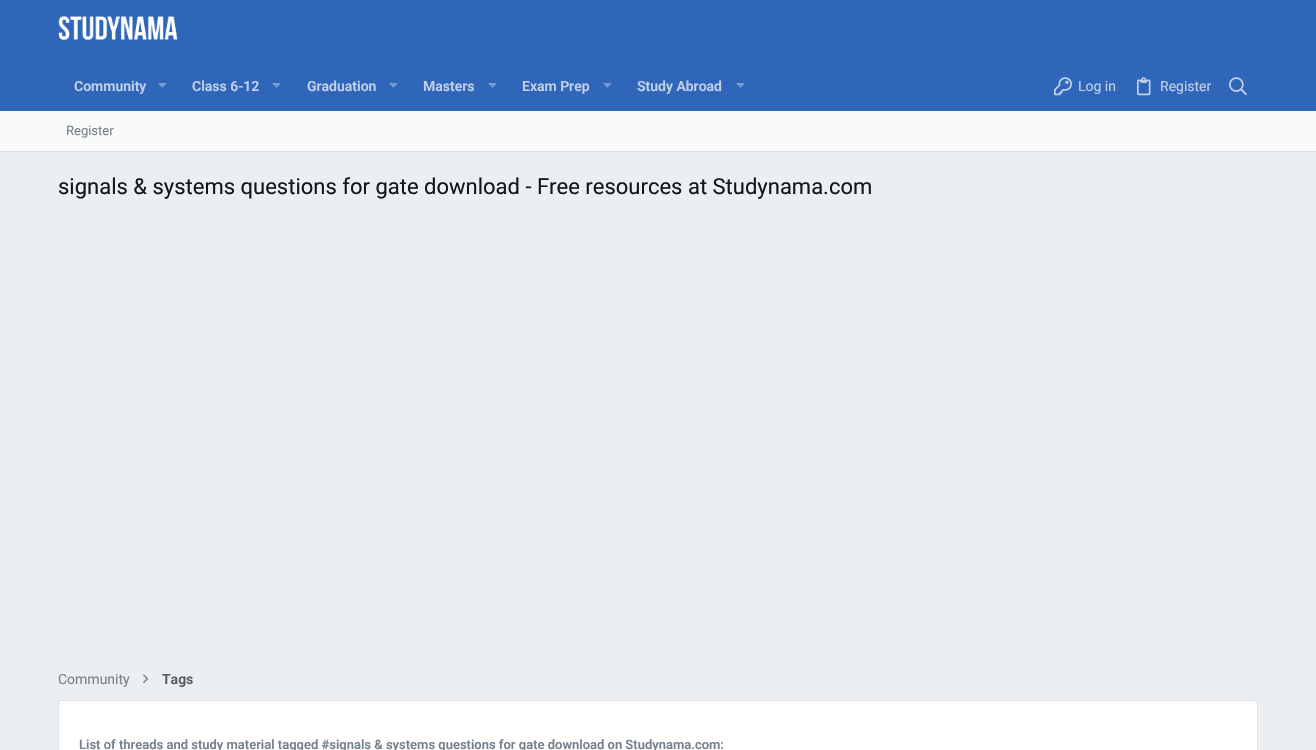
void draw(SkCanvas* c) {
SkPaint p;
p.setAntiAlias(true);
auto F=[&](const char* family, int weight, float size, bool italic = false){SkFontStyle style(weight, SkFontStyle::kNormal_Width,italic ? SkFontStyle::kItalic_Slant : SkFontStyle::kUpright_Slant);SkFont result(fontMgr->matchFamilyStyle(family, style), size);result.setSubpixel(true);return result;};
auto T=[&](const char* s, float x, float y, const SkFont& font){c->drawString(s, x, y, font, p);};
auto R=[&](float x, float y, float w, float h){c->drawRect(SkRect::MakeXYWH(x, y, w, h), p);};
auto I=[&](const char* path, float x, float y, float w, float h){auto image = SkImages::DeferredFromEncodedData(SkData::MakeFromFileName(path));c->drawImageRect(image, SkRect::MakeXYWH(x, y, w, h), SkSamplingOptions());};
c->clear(0xffeceff1);
p.setColor(0xff2f66b9);
R(0,0,1316,111);
I("1.png",58,16,120,25);
auto f1 = F("Roboto",600,14);
p.setColor(0xffc1d1ea);
T("Community",74,91,f1);
I("2.png",158,83,9,5);
T("Class 6-12",192,91,f1);
I("2.png",272,83,9,5);
T("Graduation",307,91,f1);
I("2.png",389,83,9,5);
T("Masters",423,91,f1);
I("2.png",488,83,9,5);
T("Exam Prep",522,91,f1);
I("2.png",603,83,9,5);
T("Study Abroad",637,91,f1);
I("2.png",736,83,9,5);
I("3.png",1054,77,18,19);
auto f2 = F("Roboto",400,14);
T("Log in",1078,91,f2);
I("4.png",1137,77,14,19);
T("Register",1160,91,f2);
I("5.png",1229,77,18,19);
p.setColor(0xfff9fafa);
R(0,111,1316,40);
p.setColor(0xffe0e0e0);
R(0,151,1316,1);
auto f3 = F("Roboto",400,13);
p.setColor(0xff76818d);
T("Register",66,135,f3);
auto f4 = F("Roboto",400,22);
p.setColor(0xff141618);
T("signals & systems questions for gate download - Free resources at Studynama.com",58,194,f4);
p.setColor(0xff76818d);
T("Community",58,684,f2);
I("6.png",143,674,6,9);
p.setColor(0xff535b63);
T("Tags",162,684,f1);
p.setColor(0xffffffff);
c->drawRect(SkRect::MakeXYWH(58.5,700.5,1199,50),p);
p.setStroke(true);
p.setStrokeWidth(1);
p.setColor(0xffe0e0e0);
c->drawRect(SkRect::MakeXYWH(58.5,700.5,1199,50),p);
auto f5 = F("Roboto",600,13);
p.setStroke(false);
p.setColor(0xff76818d);
T("List of threads and study material tagged #signals & systems questions for gate download on Studynama.com:",79,749,f5);
}
